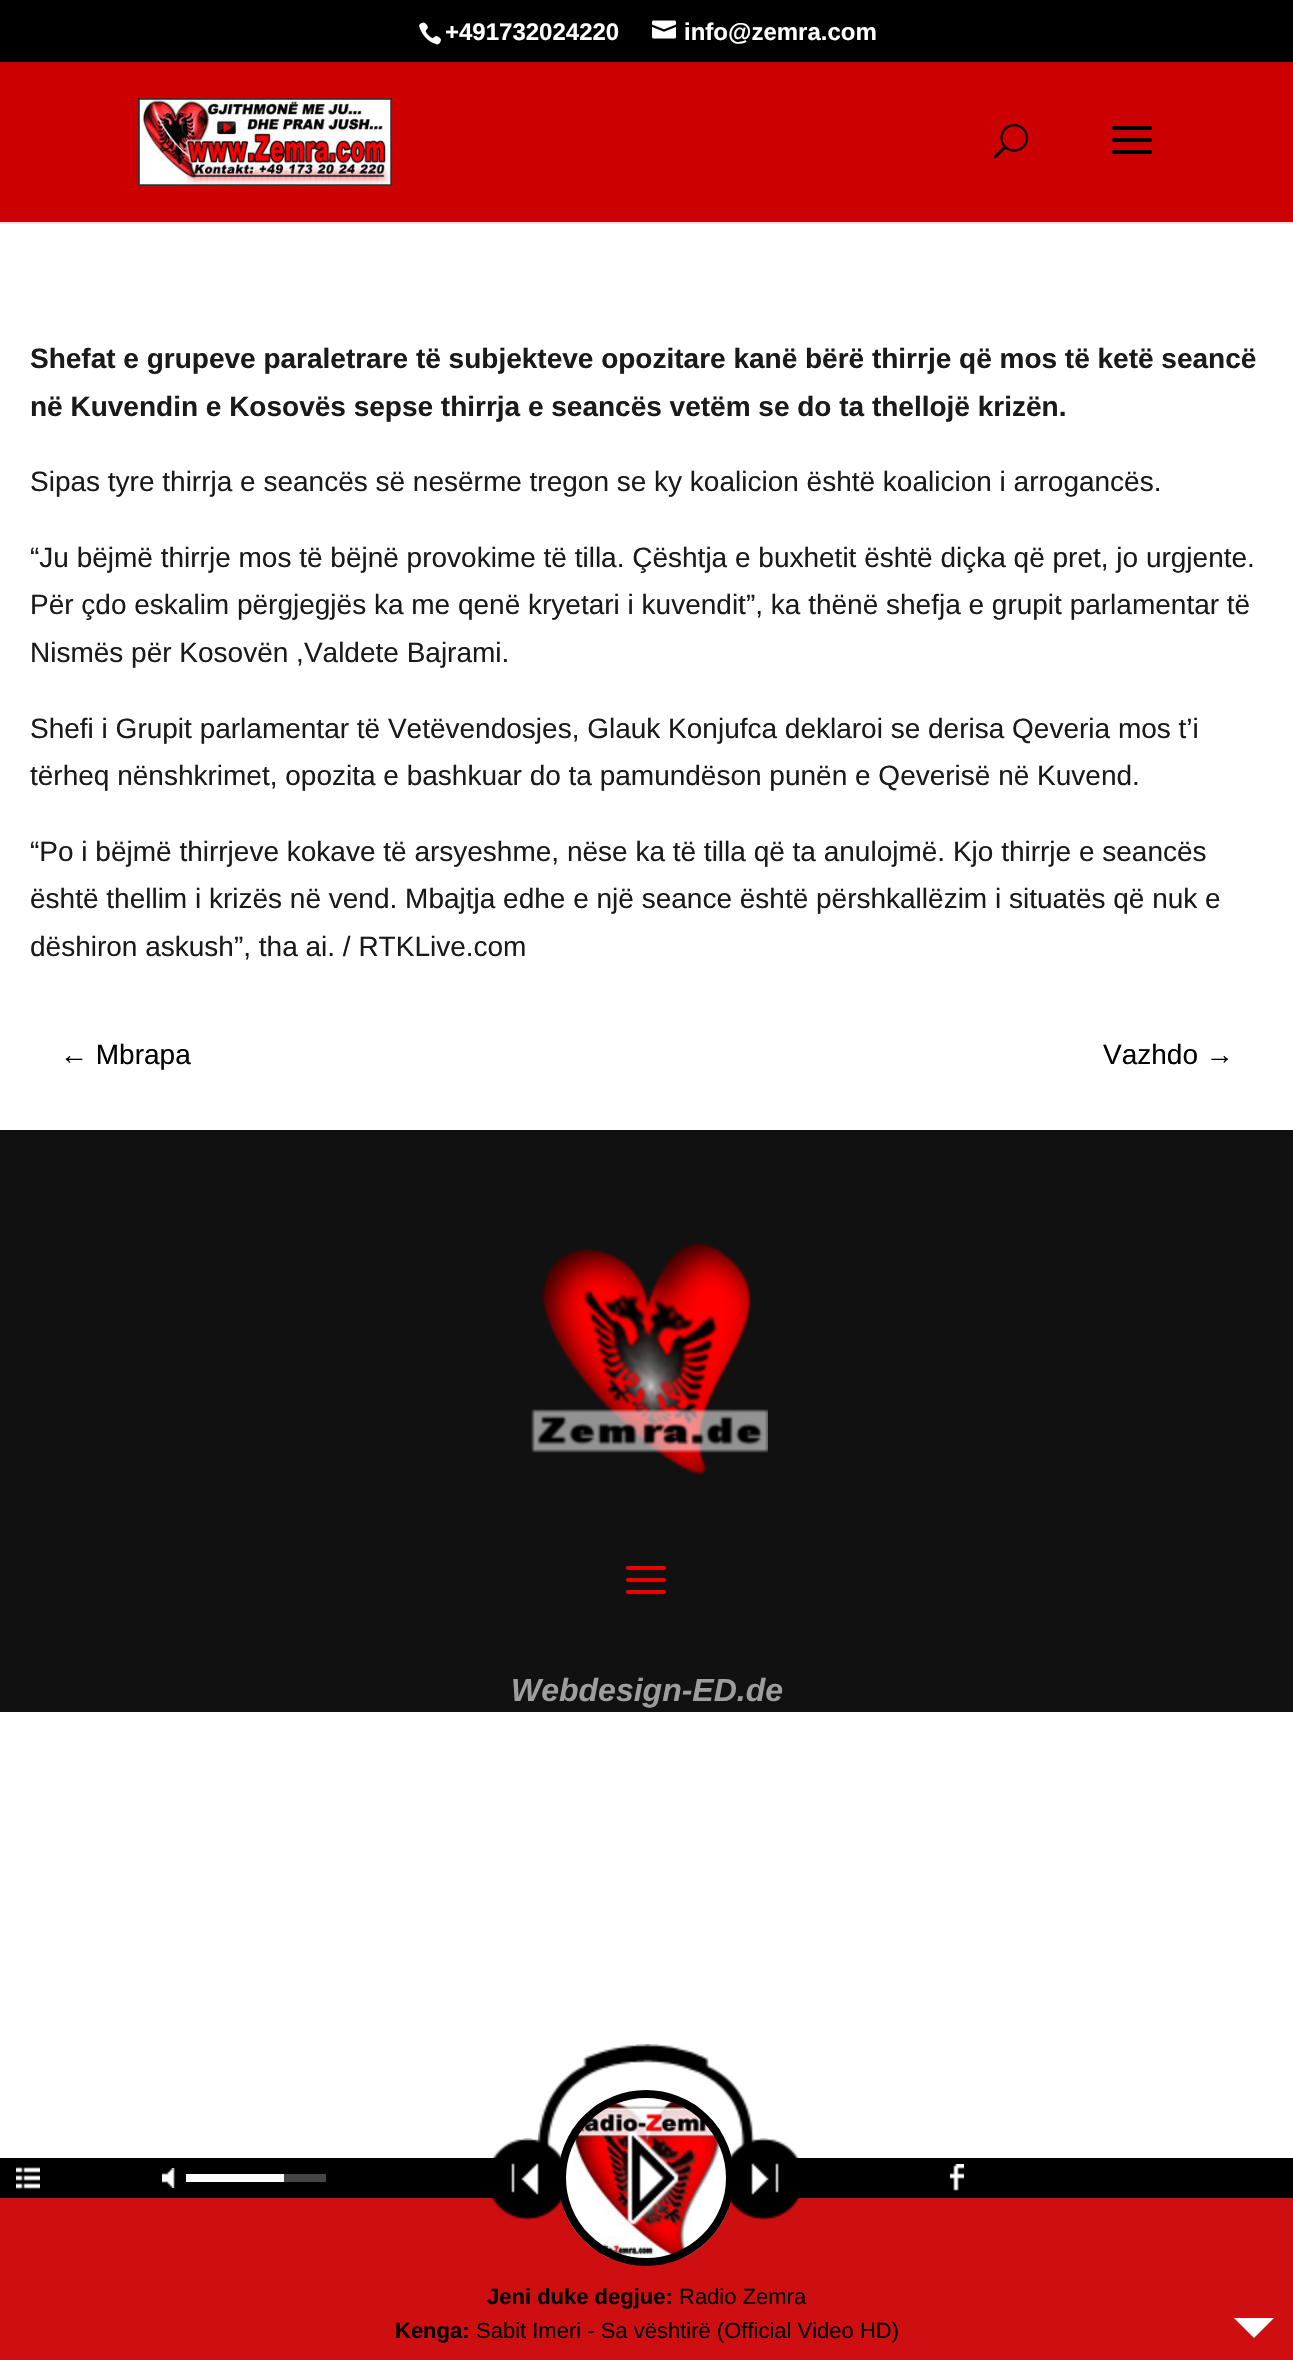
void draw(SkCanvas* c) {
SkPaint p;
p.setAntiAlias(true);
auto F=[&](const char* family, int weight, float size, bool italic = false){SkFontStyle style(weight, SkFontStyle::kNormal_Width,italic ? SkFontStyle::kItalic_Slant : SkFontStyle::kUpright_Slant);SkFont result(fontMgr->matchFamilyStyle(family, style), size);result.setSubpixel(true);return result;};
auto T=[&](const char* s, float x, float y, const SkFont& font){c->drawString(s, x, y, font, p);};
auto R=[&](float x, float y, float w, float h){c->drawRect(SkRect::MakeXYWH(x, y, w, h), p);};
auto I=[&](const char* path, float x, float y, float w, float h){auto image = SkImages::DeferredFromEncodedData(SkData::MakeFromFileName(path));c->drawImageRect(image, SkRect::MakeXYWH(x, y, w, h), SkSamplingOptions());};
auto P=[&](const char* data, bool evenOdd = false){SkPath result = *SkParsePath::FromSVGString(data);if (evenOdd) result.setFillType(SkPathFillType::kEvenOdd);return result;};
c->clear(0xffffffff);
p.setColor(0xff000000);
R(0,0,1293,62);
I("1.png",419,22,22,23);
auto f1 = F("Liberation Sans",700,24);
p.setColor(0xffffffff);
T("+491732024220",445,40,f1);
I("2.png",652,20,24,19);
T("info@zemra.com",684,40,f1);
p.setColor(0xffe6e6e6);
R(0,222,1293,2);
p.setColor(0xffcc0000);
R(0,62,1293,160);
I("3.png",138,98,254,88);
I("4.png",993,124,35,35);
I("5.png",1112,126,40,28);
auto f2 = F("Liberation Sans",700,28);
p.setColor(0xff1a1a1a);
T("Shefat e grupeve paraletrare të subjekteve opozitare kanë bërë thirrje që mos të ketë seancë",30,368,f2);
T("në Kuvendin e Kosovës sepse thirrja e seancës vetëm se do ta thellojë krizën.",30,416,f2);
auto f3 = F("Liberation Sans",400,28);
T("Sipas tyre thirrja e seancës së nesërme tregon se ky koalicion është koalicion i arrogancës.",30,491,f3);
T("“Ju bëjmë thirrje mos të bëjnë provokime të tilla. Çështja e buxhetit është diçka që pret, jo urgjente.",30,567,f3);
T("Për çdo eskalim përgjegjës ka me qenë kryetari i kuvendit”, ka thënë shefja e grupit parlamentar të",30,614,f3);
T("Nismës për Kosovën ,Valdete Bajrami.",30,662,f3);
T("Shefi i Grupit parlamentar të Vetëvendosjes, Glauk Konjufca deklaroi se derisa Qeveria mos t’i",30,738,f3);
T("tërheq nënshkrimet, opozita e bashkuar do ta pamundëson punën e Qeverisë në Kuvend.",30,785,f3);
T("“Po i bëjmë thirrjeve kokave të arsyeshme, nëse ka të tilla që ta anulojmë. Kjo thirrje e seancës",30,861,f3);
T("është thellim i krizës në vend. Mbajtja edhe e një seance është përshkallëzim i situatës që nuk e",30,908,f3);
T("dëshiron askush”, tha ai. / RTKLive.com",30,956,f3);
p.setColor(0xff000000);
T("← Mbrapa",60,1064,f3);
T("Vazhdo →",1103,1064,f3);
p.setColor(0xff111111);
R(0,1130,1293,582);
I("6.png",531,1243,237,232);
I("7.png",626,1565,40,29);
auto f4 = F("Liberation Sans",700,32,true);
p.setColor(0xff9d9d9d);
T("Webdesign-ED.de",511,1701,f4);
I("8.png",538,2044,216,105);
p.setColor(0xff000000);
R(0,2158,1293,40);
p.setColor(0xffcf0f0f);
R(0,2198,1293,162);
I("9.png",564,2098,164,160);
I("12.png",491,2138,71,82);
I("14.png",730,2138,71,82);
p.setStroke(true);
p.setStrokeWidth(8);
p.setColor(0xff000000);
c->drawCircle(646,2178,84,p);
I("10.png",16,2167,24,22);
I("11.png",162,2168,13,20);
p.setStroke(false);
p.setColor(0xff454545);
R(284,2174,42,8);
p.setColor(0xffffffff);
R(186,2174,98,8);
I("13.png",627,2131,52,94);
I("15.png",950,2164,14,27);
auto f5 = F("Liberation Sans",700,22);
p.setColor(0xff000000);
T("Jeni duke degjue:",487,2304,f5);
auto f6 = F("Liberation Sans",400,22);
T("Radio Zemra",679,2304,f6);
T("Kenga:",395,2338,f5);
T("Sabit Imeri - Sa vështirë (Official Video HD)",476,2338,f6);
p.setColor(0xffffffff);
c->drawPath(P("M1234 2318h40l-20 20z"),p);
}
